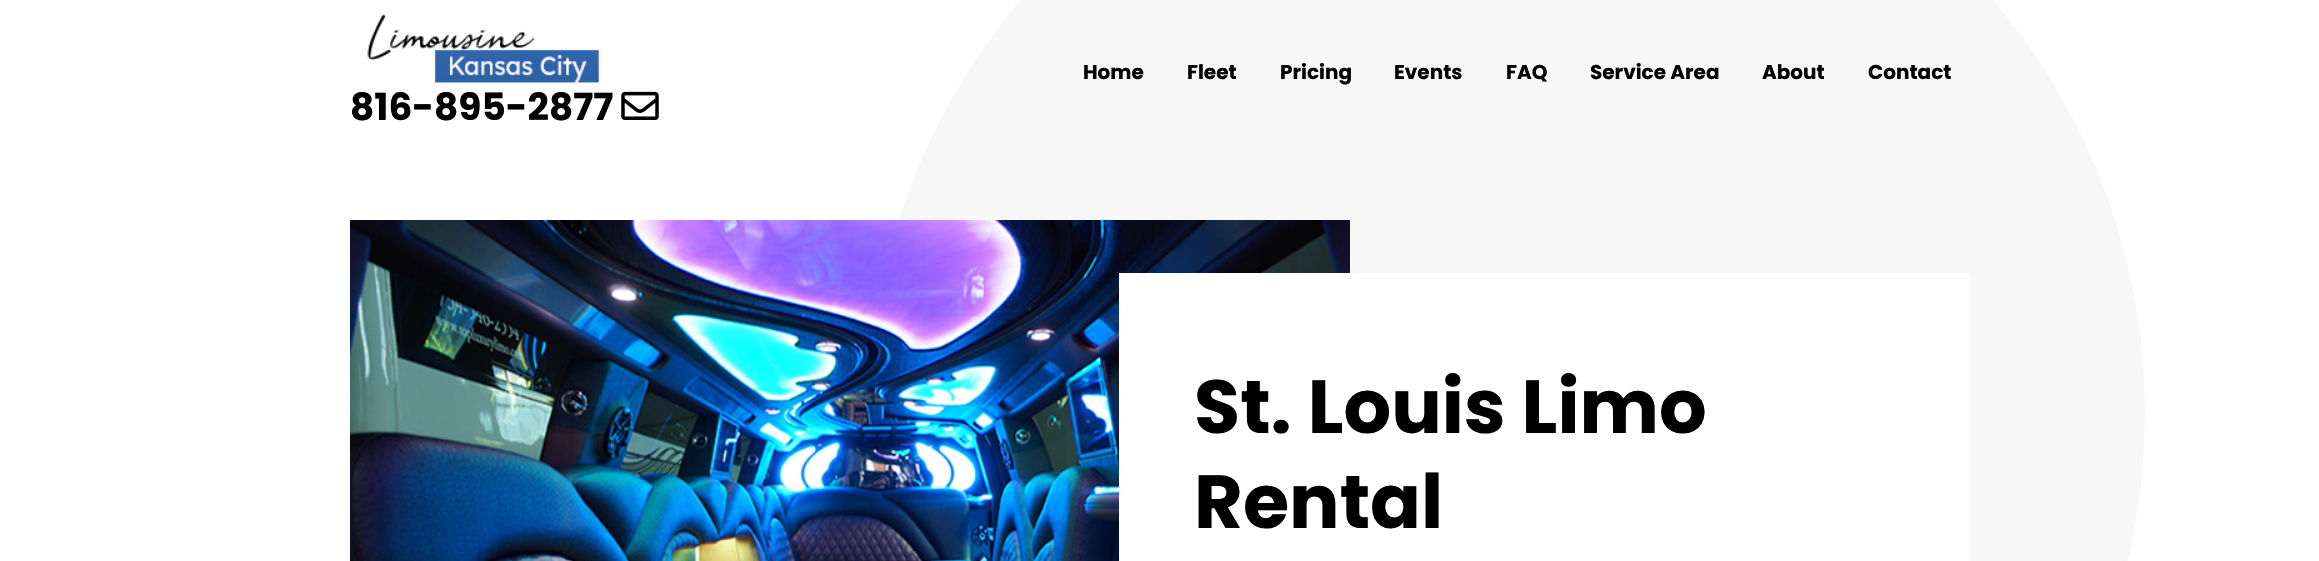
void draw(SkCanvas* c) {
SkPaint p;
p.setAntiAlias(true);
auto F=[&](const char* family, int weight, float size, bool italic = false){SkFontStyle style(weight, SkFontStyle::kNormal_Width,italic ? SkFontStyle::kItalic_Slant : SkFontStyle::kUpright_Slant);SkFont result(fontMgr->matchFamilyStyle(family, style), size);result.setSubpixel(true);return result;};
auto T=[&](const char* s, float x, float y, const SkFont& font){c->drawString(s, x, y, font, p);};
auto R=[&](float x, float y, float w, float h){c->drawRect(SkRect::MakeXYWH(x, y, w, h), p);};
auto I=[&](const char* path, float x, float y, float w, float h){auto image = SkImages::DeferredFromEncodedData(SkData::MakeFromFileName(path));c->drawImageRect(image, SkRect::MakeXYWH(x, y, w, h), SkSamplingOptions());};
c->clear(0xffffffff);
p.setColor(0xfff7f7f7);
c->drawCircle(1507,413,638,p);
auto f1 = F("Poppins",700,20);
p.setColor(0xff000000);
T("Home",1083,79,f1);
T("Fleet",1187,79,f1);
T("Pricing",1280,79,f1);
T("Events",1394,79,f1);
T("FAQ",1506,79,f1);
T("Service Area",1590,79,f1);
T("About",1762,79,f1);
T("Contact",1868,79,f1);
I("1.png",367,14,232,69);
auto f2 = F("Poppins",700,37.5);
T("816-895-2877",350,120,f2);
I("2.png",621,91,38,29);
I("3.png",350,220,1000,341);
p.setColor(0xffffffff);
R(1119,273,851,288);
auto f3 = F("Poppins",700,75);
p.setColor(0xff000000);
T("St. Louis Limo",1194,433,f3);
T("Rental",1194,528,f3);
}
